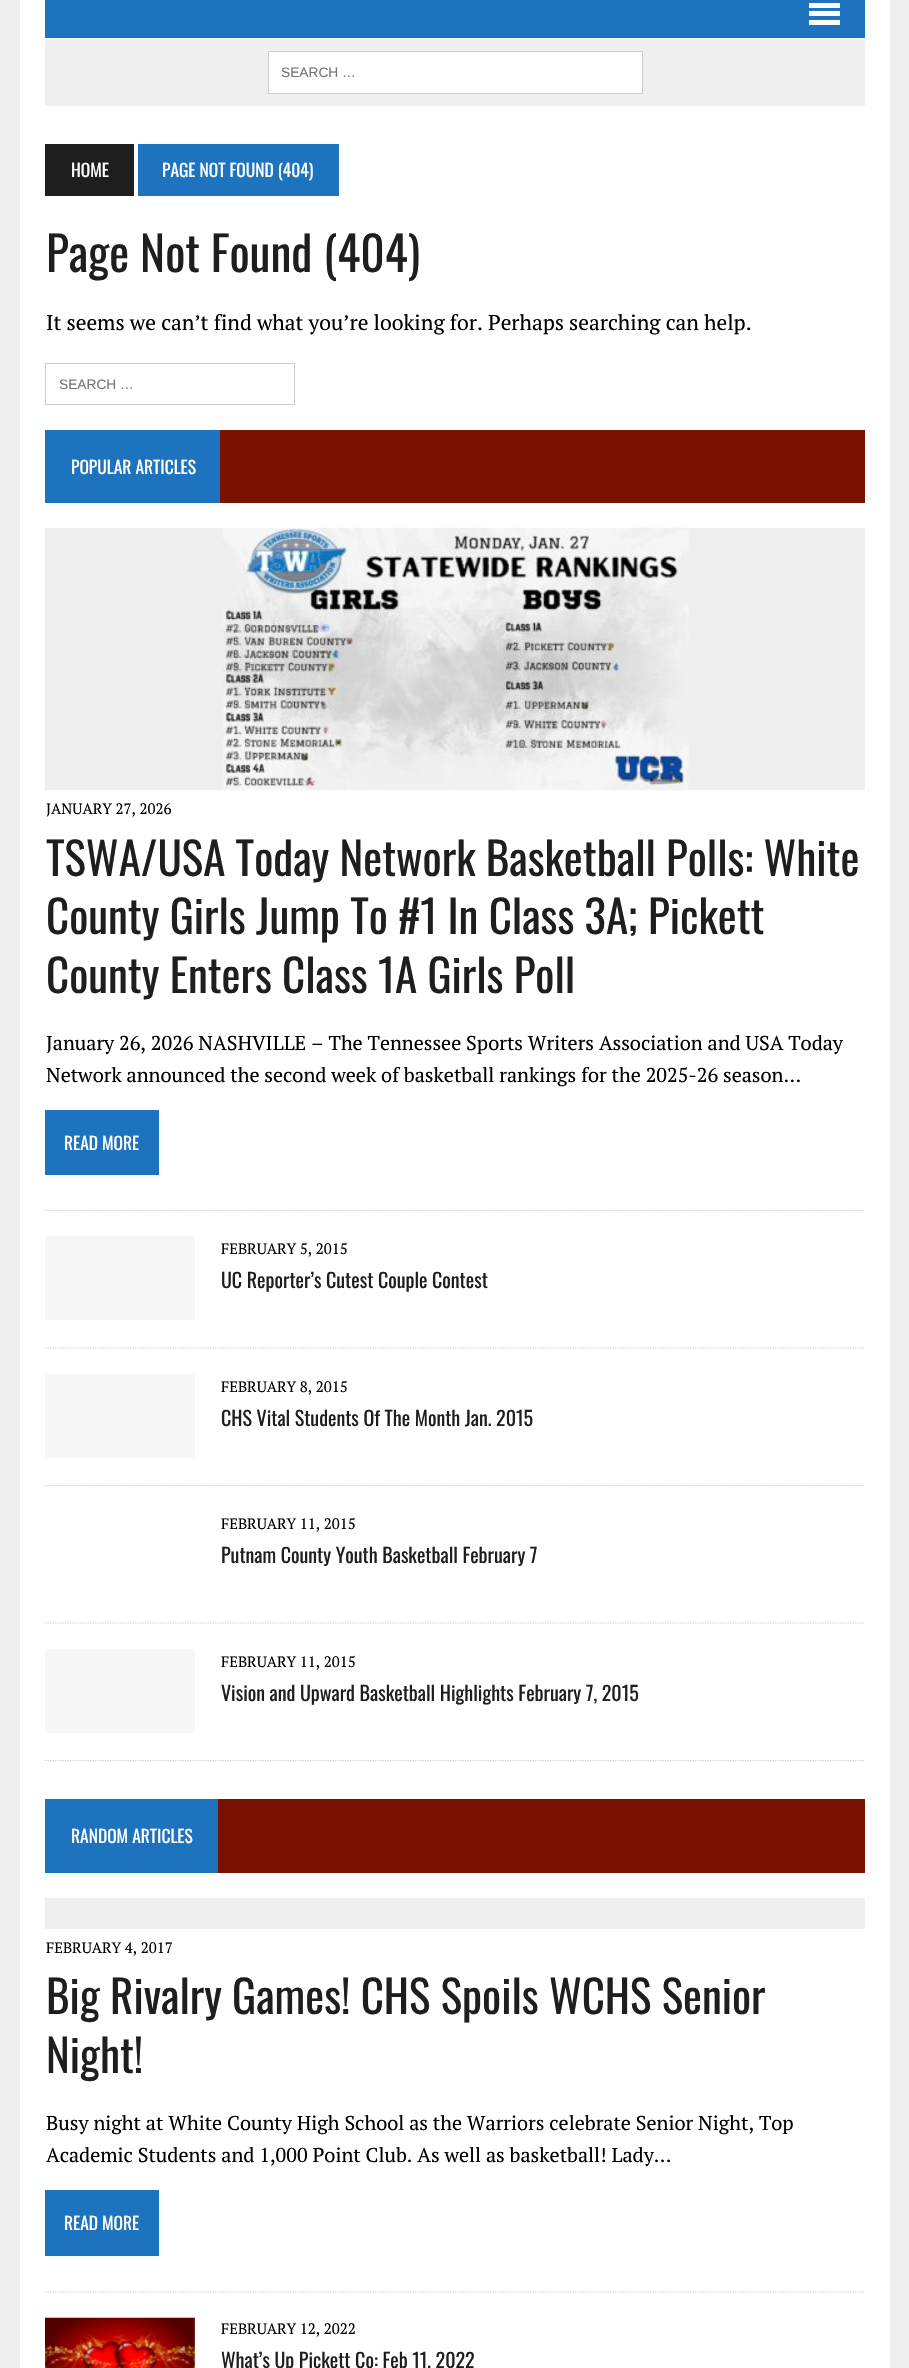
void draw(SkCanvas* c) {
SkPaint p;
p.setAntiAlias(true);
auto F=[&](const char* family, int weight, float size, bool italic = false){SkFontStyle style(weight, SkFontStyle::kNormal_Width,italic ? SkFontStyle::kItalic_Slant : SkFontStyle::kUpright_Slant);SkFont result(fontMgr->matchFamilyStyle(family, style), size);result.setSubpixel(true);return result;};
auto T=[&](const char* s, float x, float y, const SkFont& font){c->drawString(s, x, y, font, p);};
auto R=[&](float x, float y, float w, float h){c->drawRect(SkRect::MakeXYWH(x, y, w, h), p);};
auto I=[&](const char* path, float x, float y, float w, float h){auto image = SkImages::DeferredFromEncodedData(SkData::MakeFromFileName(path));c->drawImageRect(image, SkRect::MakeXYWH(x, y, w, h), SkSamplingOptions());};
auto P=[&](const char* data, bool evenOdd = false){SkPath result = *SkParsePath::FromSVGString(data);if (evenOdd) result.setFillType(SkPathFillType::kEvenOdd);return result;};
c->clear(0xffefefef);
p.setColor(0xffffffff);
R(20,0,870,2368);
p.setColor(0xff1e73be);
R(45,0,820,38);
p.setColor(0xffffffff);
R(809,3,31,5);
R(809,11,31,5);
R(809,20,31,5);
p.setColor(0xffefefef);
R(45,39,820,67);
p.setColor(0xffffffff);
c->drawRect(SkRect::MakeXYWH(268.5,51.5,374,42),p);
p.setStroke(true);
p.setStrokeWidth(1);
p.setColor(0xffcdcdcd);
c->drawRect(SkRect::MakeXYWH(268.5,51.5,374,42),p);
auto f1 = F("Liberation Sans",400,13.75);
p.setStroke(false);
p.setColor(0xff757575);
T("SEARCH …",281,77,f1);
p.setColor(0xff1f1e1e);
R(45,144,89,52);
auto f2 = F("Oswald",400,17.5);
p.setColor(0xffffffff);
T("HOME",71,177,f2);
p.setColor(0xff1e73be);
R(138,144,201,52);
p.setColor(0xffffffff);
T("PAGE NOT FOUND (404)",162,177,f2);
auto f3 = F("Oswald",400,47.5);
p.setColor(0xff1f1e1e);
T("Page Not Found (404)",46,272,f3);
auto f4 = F("PT Serif",400,21.25);
p.setColor(0xff000000);
T("It seems we can’t find what you’re looking for. Perhaps searching can help.",46,330,f4);
p.setStroke(true);
p.setColor(0xffcdcdcd);
c->drawRect(SkRect::MakeXYWH(45.5,363.5,249,41),p);
p.setStroke(false);
p.setColor(0xff757575);
T("SEARCH …",59,389,f1);
p.setColor(0xff791200);
R(220,430,645,73);
p.setColor(0xff1e73be);
R(45,430,175,73);
p.setColor(0xffffffff);
T("POPULAR ARTICLES",71,474,f2);
p.setColor(0xffefefef);
R(45,528,820,262);
I("1.png",222,527,467,264);
auto f5 = F("PT Serif",400,15);
p.setColor(0xff000000);
T("JANUARY 27, 2026",46,814,f5);
auto f6 = F("Oswald",400,45);
p.setColor(0xff1f1e1e);
T("TSWA/USA Today Network Basketball Polls: White",46,876,f6);
T("County Girls Jump To #1 In Class 3A; Pickett",46,934,f6);
T("County Enters Class 1A Girls Poll",46,993,f6);
auto f7 = F("PT Serif",400,20);
p.setColor(0xff000000);
T("January 26, 2026 NASHVILLE – The Tennessee Sports Writers Association and USA Today",46,1050,f7);
T("Network announced the second week of basketball rankings for the 2025-26 season…",46,1082,f7);
p.setColor(0xff1e73be);
R(45,1110,114,65);
p.setColor(0xffffffff);
T("READ MORE",64,1150,f2);
p.setStroke(true);
p.setStrokeWidth(1.2);
p.setColor(0xffcdcdcd);
p.setPathEffect(SkDashPathEffect::Make({{1.25f,1.25f}}, 0));
c->drawPath(P("M45 1210.5h820"),p);
p.setPathEffect(nullptr);
p.setStroke(false);
p.setColor(0xfff7f7f7);
R(45,1236,150,84);
p.setColor(0xff000000);
T("FEBRUARY 5, 2015",221,1254,f5);
auto f8 = F("Oswald",400,20);
p.setColor(0xff1f1e1e);
T("UC Reporter’s Cutest Couple Contest",221,1288,f8);
p.setStroke(true);
p.setColor(0xffcdcdcd);
p.setPathEffect(SkDashPathEffect::Make({{1.25f,1.25f}}, 0));
c->drawPath(P("M45 1348h820"),p);
p.setPathEffect(nullptr);
p.setStroke(false);
p.setColor(0xfff7f7f7);
R(45,1374,150,84);
p.setColor(0xff000000);
T("FEBRUARY 8, 2015",221,1392,f5);
p.setColor(0xff1f1e1e);
T("CHS Vital Students Of The Month Jan. 2015",221,1426,f8);
p.setStroke(true);
p.setColor(0xffcdcdcd);
p.setPathEffect(SkDashPathEffect::Make({{1.25f,1.25f}}, 0));
c->drawPath(P("M45 1485.5h820"),p);
p.setPathEffect(nullptr);
p.setStroke(false);
p.setColor(0xff000000);
T("FEBRUARY 11, 2015",221,1529,f5);
p.setColor(0xff1f1e1e);
T("Putnam County Youth Basketball February 7",221,1563,f8);
p.setStroke(true);
p.setColor(0xffcdcdcd);
p.setPathEffect(SkDashPathEffect::Make({{1.25f,1.25f}}, 0));
c->drawPath(P("M45 1623h820"),p);
p.setPathEffect(nullptr);
p.setStroke(false);
p.setColor(0xfff7f7f7);
R(45,1649,150,84);
p.setColor(0xff000000);
T("FEBRUARY 11, 2015",221,1667,f5);
p.setColor(0xff1f1e1e);
T("Vision and Upward Basketball Highlights February 7, 2015",221,1701,f8);
c->save();
c->clipRect(SkRect::MakeXYWH(45,430,820,1331));
p.setStroke(true);
p.setColor(0xffcdcdcd);
p.setPathEffect(SkDashPathEffect::Make({{1.25f,1.25f}}, 0));
c->drawPath(P("M45 1760.5h820"),p);
p.setPathEffect(nullptr);
c->restore();
p.setStroke(false);
p.setColor(0xff791200);
R(218,1799,647,74);
p.setColor(0xff1e73be);
R(45,1799,173,74);
p.setColor(0xffffffff);
T("RANDOM ARTICLES",71,1843,f2);
p.setColor(0xffefefef);
R(45,1898,820,31);
p.setColor(0xff000000);
T("FEBRUARY 4, 2017",46,1953,f5);
p.setColor(0xff1f1e1e);
T("Big Rivalry Games! CHS Spoils WCHS Senior",46,2014,f6);
T("Night!",46,2073,f6);
p.setColor(0xff000000);
T("Busy night at White County High School as the Warriors celebrate Senior Night, Top",46,2130,f7);
T("Academic Students and 1,000 Point Club. As well as basketball! Lady…",46,2162,f7);
p.setColor(0xff1e73be);
R(45,2190,114,66);
p.setColor(0xffffffff);
T("READ MORE",64,2230,f2);
p.setStroke(true);
p.setColor(0xffcdcdcd);
p.setPathEffect(SkDashPathEffect::Make({{1.25f,1.25f}}, 0));
c->drawPath(P("M45 2292h820"),p);
p.setPathEffect(nullptr);
I("2.png",45,2317,150,51);
p.setStroke(false);
p.setColor(0xff000000);
T("FEBRUARY 12, 2022",221,2334,f5);
p.setColor(0xff1f1e1e);
T("What’s Up Pickett Co: Feb 11, 2022",221,2368,f8);
}
